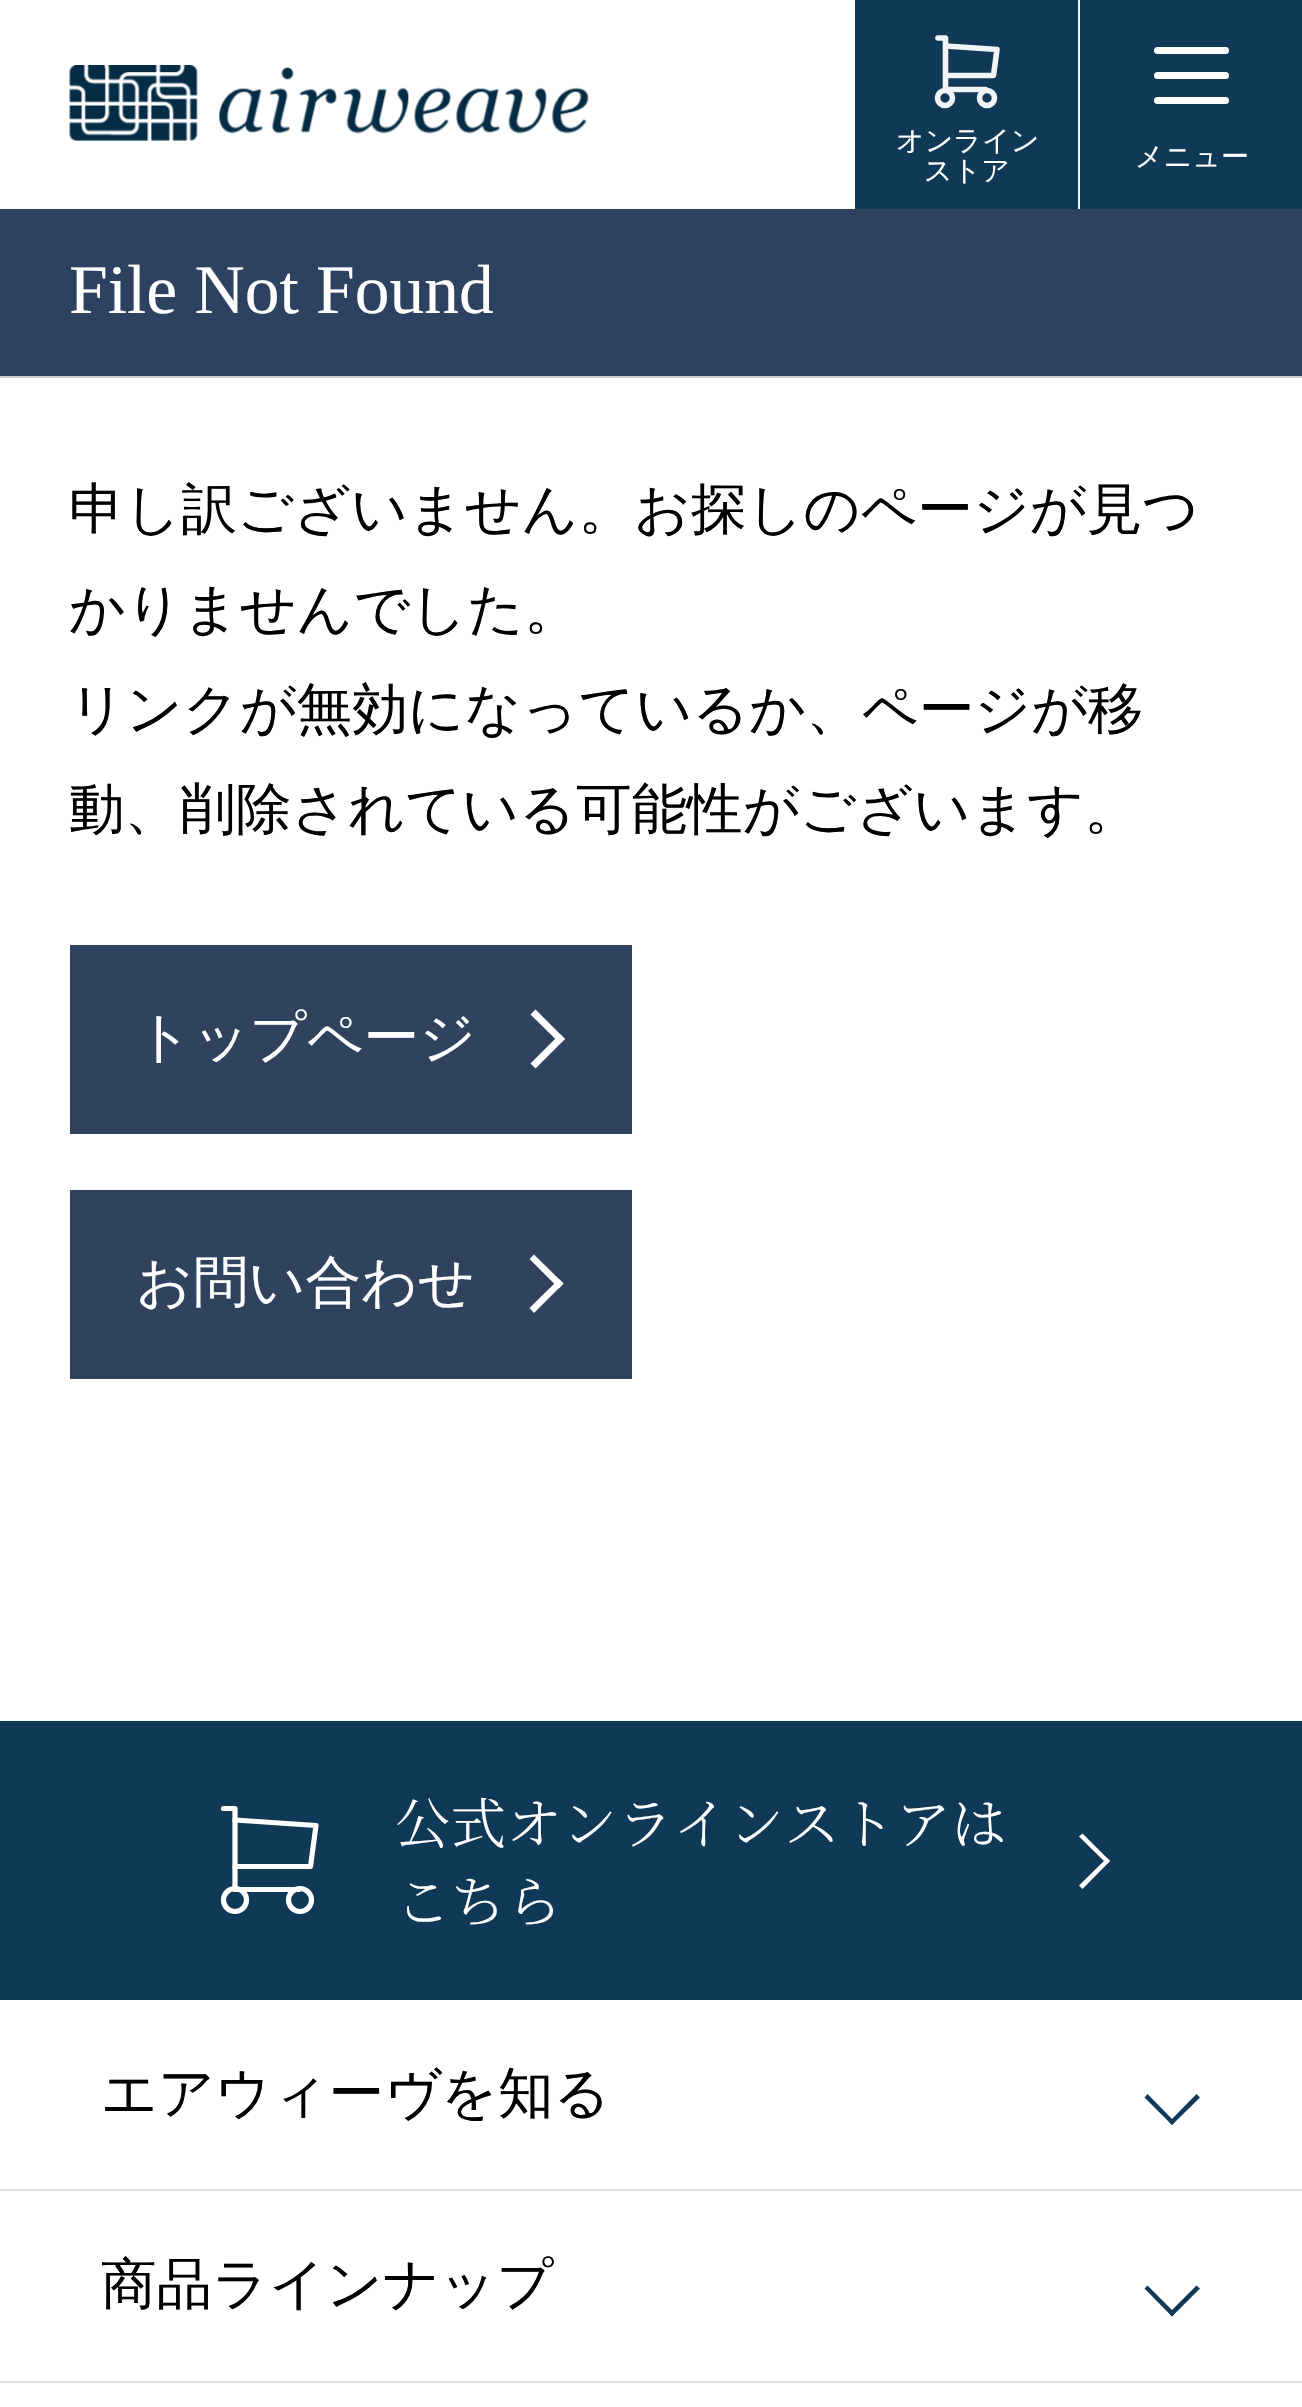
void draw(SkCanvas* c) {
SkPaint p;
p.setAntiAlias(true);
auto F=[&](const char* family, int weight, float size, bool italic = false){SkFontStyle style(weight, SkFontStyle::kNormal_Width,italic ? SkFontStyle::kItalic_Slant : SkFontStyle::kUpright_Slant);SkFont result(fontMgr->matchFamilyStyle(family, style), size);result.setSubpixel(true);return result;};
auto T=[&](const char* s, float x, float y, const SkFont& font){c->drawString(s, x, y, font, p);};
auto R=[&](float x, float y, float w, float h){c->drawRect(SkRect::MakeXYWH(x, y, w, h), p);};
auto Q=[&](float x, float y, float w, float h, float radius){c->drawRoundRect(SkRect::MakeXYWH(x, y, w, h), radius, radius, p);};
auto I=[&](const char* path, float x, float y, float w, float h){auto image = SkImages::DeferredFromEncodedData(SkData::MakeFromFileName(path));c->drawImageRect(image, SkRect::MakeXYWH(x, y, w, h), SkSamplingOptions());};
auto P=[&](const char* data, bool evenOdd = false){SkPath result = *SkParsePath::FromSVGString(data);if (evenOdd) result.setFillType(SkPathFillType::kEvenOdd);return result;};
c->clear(0xffffffff);
I("1.png",69,65,520,76);
p.setColor(0xfff2f5f7);
R(1078,0,2,209);
p.setColor(0xff103957);
R(855,0,223,209);
p.setStroke(true);
p.setStrokeWidth(5.6);
p.setColor(0xfff2f5f7);
c->drawCircle(945,98,7.5,p);
c->drawCircle(987,98,7.5,p);
p.setStrokeCap(SkPaint::kRound_Cap);
p.setStrokeJoin(SkPaint::kRound_Join);
c->drawPath(P("M985.5 89.5h-40v-51.5h-7.5"),p);
c->drawPath(P("M946 46l51 3.5l-3.5 26h-47.5"),p);
auto f1 = F("WenQuanYi Zen Hei",500,28);
p.setStroke(false);
p.setColor(0xffffffff);
T("オンライン",896,150,f1);
T("ストア",924,180,f1);
p.setColor(0xff103957);
R(1080,0,222,209);
p.setColor(0xffffffff);
Q(1154,47,75,7,3.5);
Q(1154,72,75,7,3.5);
Q(1154,97,75,7,3.5);
T("メニュー",1135,166,f1);
p.setColor(0xff2d4260);
R(0,209,1302,167);
p.setColor(0xffc9ced1);
R(0,376,1302,2);
auto f2 = F("Liberation Serif",400,69.5);
p.setColor(0xffffffff);
T("File Not Found",69,313,f2);
auto f3 = F("WenQuanYi Zen Hei",500,55.6);
p.setColor(0xff000000);
T("申し訳ございません。お探しのページが見つ",69,528,f3);
T("かりませんでした。",69,628,f3);
T("リンクが無効になっているか、ページが移",69,728,f3);
T("動、削除されている可能性がございます。",69,828,f3);
p.setColor(0xff2f435f);
R(70,945,562,189);
p.setColor(0xffffffff);
T("トップページ",136,1056,f3);
c->drawPath(P("M535.5 1009.5l29.5 29.5l-5 4.5l-29.5-29z"),p);
c->drawPath(P("M560 1034l5 5l-29.5 29.5l-5-5z"),p);
p.setColor(0xff2f435f);
R(70,1190,562,189);
p.setColor(0xffffffff);
T("お問い合わせ",136,1301,f3);
c->drawPath(P("M534 1254.5l29.5 29l-4.5 5l-29.5-29.5z"),p);
c->drawPath(P("M559 1279l4.5 4.5l-29.5 29.5l-4.5-5z"),p);
p.setColor(0xff103957);
R(0,1721,1302,279);
p.setStroke(true);
p.setStrokeWidth(5.2);
p.setStrokeCap(SkPaint::kButt_Cap);
p.setStrokeJoin(SkPaint::kMiter_Join);
p.setColor(0xffffffff);
c->drawCircle(235,1900,11.5,p);
c->drawCircle(300,1900,11.5,p);
p.setStrokeCap(SkPaint::kRound_Cap);
p.setStrokeJoin(SkPaint::kRound_Join);
c->drawPath(P("M298.5 1889.5h-63.5v-81h-11.5"),p);
c->drawPath(P("M235 1820l81 5.5l-5.5 41h-75.5"),p);
auto f4 = F("Noto Serif JP",300,55.6);
p.setStroke(false);
T("公式オンラインストアは",395,1844,f4);
T("こちら",395,1922,f4);
c->drawPath(P("M1082.5 1833.5l27.5 27.5l-3 3l-28-27.5z"),p);
c->drawPath(P("M1107 1858l3 3l-27.5 28l-3.5-3.5z"),p);
p.setColor(0xff000000);
T("エアウィーヴを知る",101,2112,f3);
p.setColor(0xff103957);
c->drawPath(P("M1196.5 2094l3.5 3.5l-28 27.5l-3-3z"),p);
c->drawPath(P("M1147.5 2094l27.5 28l-3 3l-27.5-27.5z"),p);
p.setColor(0xffdedfe1);
R(0,2189,1302,2);
p.setColor(0xff000000);
T("商品ラインナップ",101,2303,f3);
p.setColor(0xff103957);
c->drawPath(P("M1196.5 2285.5l3.5 3l-28 28l-3-3.5z"),p);
c->drawPath(P("M1147.5 2285.5l27.5 27.5l-3 3.5l-27.5-28z"),p);
p.setColor(0xffdedfe1);
R(0,2381,1302,2);
}
